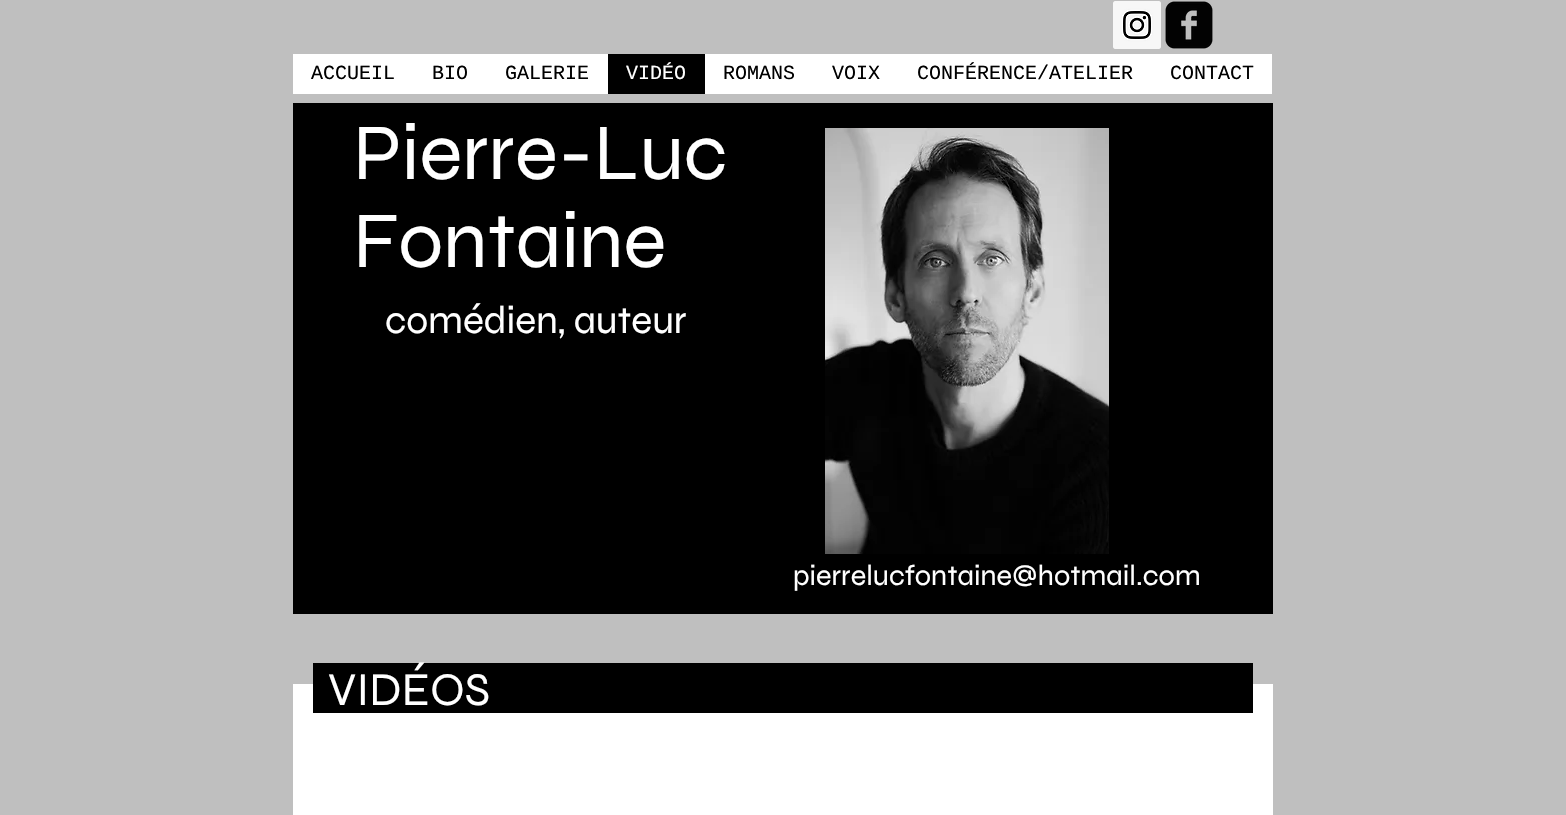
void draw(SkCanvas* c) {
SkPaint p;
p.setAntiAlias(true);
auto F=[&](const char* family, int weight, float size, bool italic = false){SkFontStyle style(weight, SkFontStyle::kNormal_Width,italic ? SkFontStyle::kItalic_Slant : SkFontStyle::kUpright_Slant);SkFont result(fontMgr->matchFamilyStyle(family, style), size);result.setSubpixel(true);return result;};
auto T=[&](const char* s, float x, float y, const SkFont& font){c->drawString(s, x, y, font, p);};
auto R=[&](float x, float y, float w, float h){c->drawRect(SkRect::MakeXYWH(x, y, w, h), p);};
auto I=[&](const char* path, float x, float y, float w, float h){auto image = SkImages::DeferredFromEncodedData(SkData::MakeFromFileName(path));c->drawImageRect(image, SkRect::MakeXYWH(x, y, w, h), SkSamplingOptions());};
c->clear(0xffbfbfbf);
I("1.png",1113,1,48,48);
I("2.png",1165,1,48,48);
p.setColor(0xffffffff);
R(293,54,315,40);
auto f1 = F("Liberation Mono",400,20);
p.setColor(0xff000000);
T("ACCUEIL",311,79,f1);
T("BIO",432,79,f1);
T("GALERIE",505,79,f1);
R(608,54,97,40);
p.setColor(0xffffffff);
T("VIDÉO",626,79,f1);
R(705,54,567,40);
p.setColor(0xff000000);
T("ROMANS",723,79,f1);
T("VOIX",832,79,f1);
T("CONFÉRENCE/ATELIER",917,79,f1);
T("CONTACT",1170,79,f1);
R(293,103,980,511);
auto f2 = F("Syne",400,80);
p.setColor(0xffffffff);
T("Pierre-Luc",353,179,f2);
T("Fontaine",353,267,f2);
I("3.png",825,128,284,426);
auto f3 = F("Syne",400,39);
T("comédien, auteur",385,333,f3);
auto f4 = F("Syne",400,29);
T("pierrelucfontaine@hotmail.com",793,585,f4);
R(293,684,980,131);
p.setColor(0xff000000);
R(313,663,940,50);
auto f5 = F("Syne",400,47);
p.setColor(0xffffffff);
T("VIDÉOS",328,705,f5);
}
